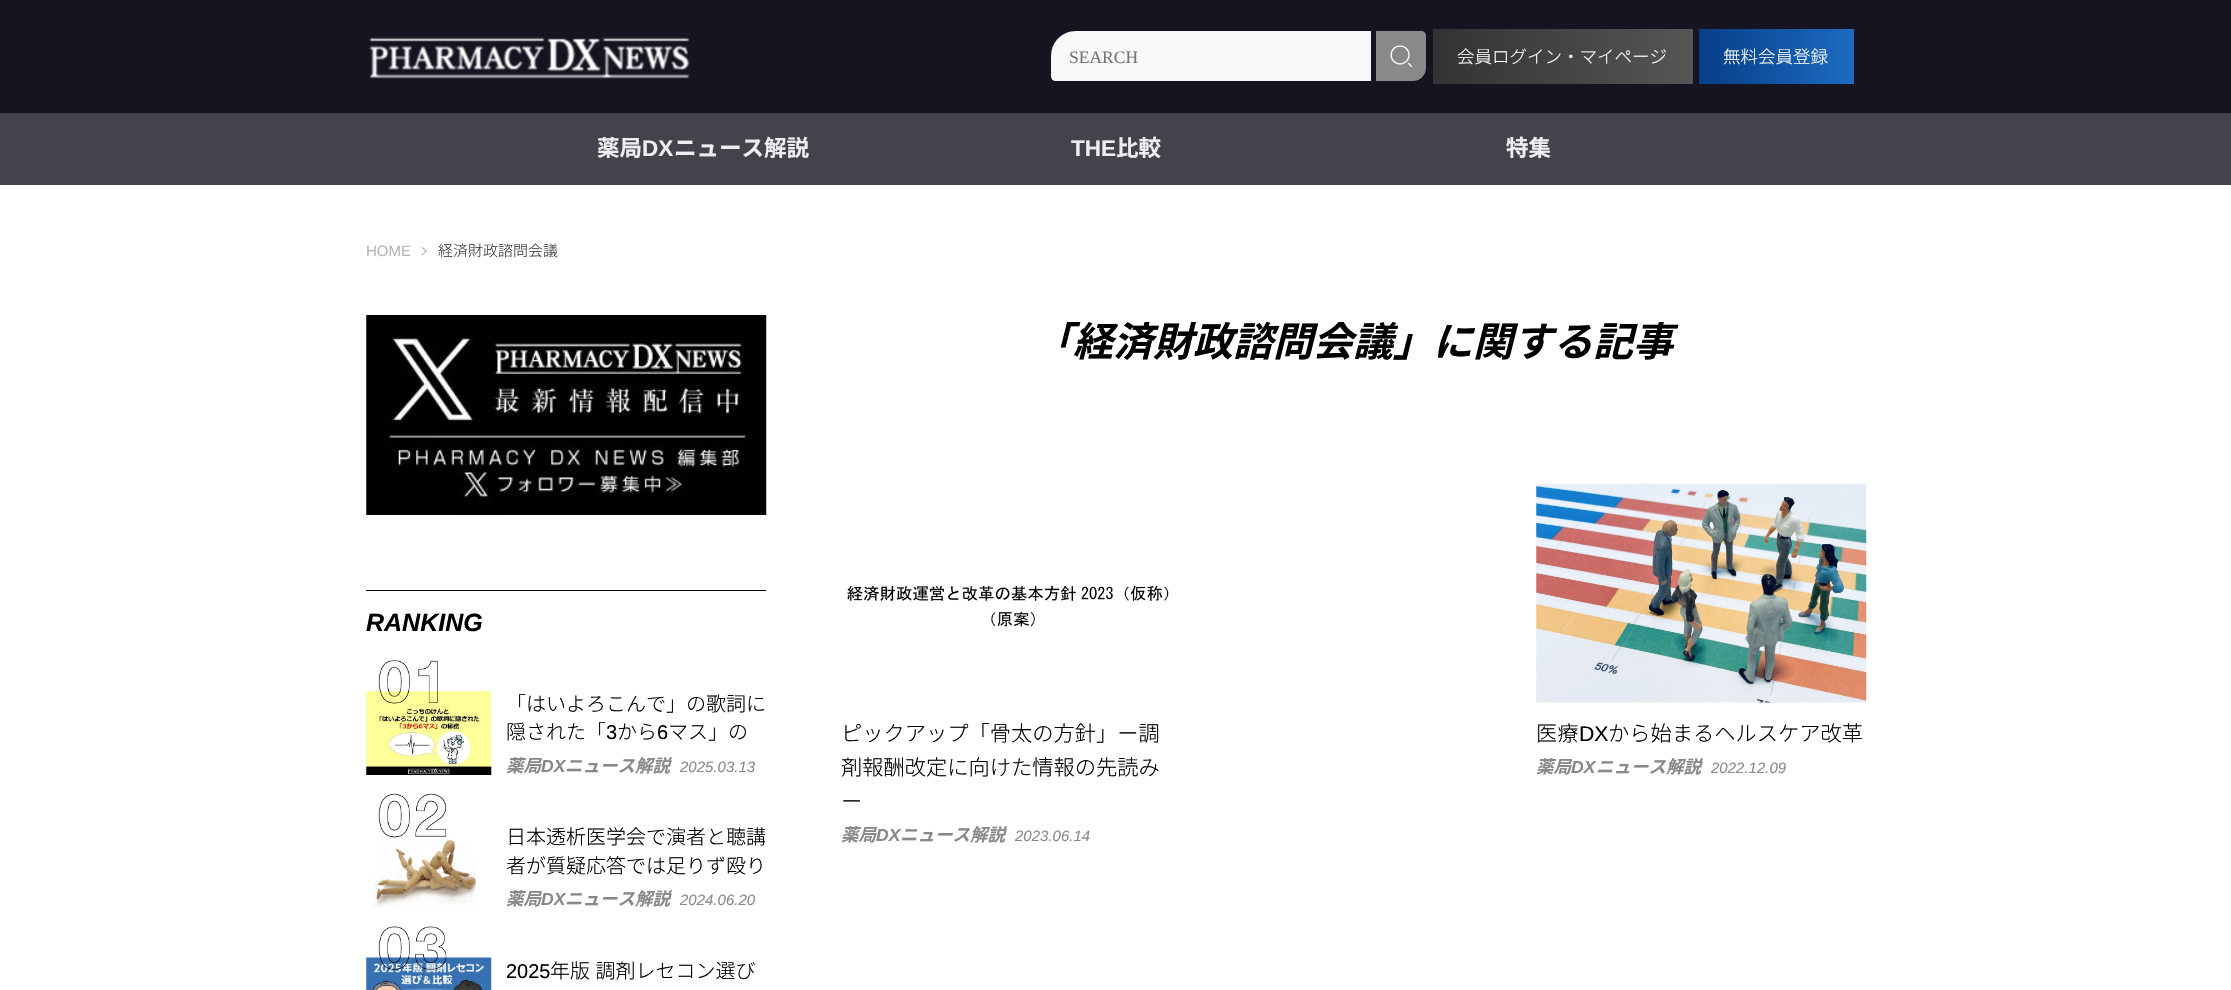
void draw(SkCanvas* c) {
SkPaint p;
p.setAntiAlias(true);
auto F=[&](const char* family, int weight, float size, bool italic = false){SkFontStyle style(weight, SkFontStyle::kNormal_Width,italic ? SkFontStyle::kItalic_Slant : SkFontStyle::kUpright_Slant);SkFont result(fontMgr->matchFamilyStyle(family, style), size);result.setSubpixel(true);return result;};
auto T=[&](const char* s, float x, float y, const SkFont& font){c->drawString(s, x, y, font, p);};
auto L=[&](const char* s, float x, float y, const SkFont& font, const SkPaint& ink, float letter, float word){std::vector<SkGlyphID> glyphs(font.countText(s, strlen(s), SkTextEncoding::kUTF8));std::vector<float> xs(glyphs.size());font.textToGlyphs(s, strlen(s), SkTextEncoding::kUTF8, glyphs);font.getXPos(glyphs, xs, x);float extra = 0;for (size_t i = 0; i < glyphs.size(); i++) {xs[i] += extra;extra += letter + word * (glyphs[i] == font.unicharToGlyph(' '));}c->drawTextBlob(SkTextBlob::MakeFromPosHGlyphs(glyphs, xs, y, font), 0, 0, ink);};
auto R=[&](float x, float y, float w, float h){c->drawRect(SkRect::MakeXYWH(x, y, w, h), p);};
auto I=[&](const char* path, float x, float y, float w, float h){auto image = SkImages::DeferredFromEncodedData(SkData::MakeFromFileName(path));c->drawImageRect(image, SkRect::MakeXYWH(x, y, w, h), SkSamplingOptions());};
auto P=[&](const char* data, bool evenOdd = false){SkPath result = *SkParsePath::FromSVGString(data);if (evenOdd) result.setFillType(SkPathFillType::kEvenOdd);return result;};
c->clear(0xffffffff);
p.setColor(0xff161420);
R(0,0,2231,113);
I("1.png",369,37,321,42);
p.setColor(0xfff7f8f8);
c->drawPath(P("M1076 31h295v50h-315c-3 0-5-2-5-5v-20c0-14 11-25 25-25z"),p);
auto f1 = F("Liberation Serif",400,17.5);
p.setColor(0xff757575);
T("SEARCH",1069,63,f1);
p.setColor(0xff898989);
c->drawPath(P("M1376 31h45c3 0 5 2 5 5v32c0 7-6 13-13 13h-37z"),p);
I("2.png",1390,45,23,22);
{
const SkColor colors[] = {0xff333333,0xff787878};
const float stops[] = {0,1};
const SkPoint ends[] = {{1433,56}, {1953,56}};
p.setShader(SkGradientShader::MakeLinear(ends, colors, stops, 2, SkTileMode::kClamp));
p.setAlpha(255);
}
R(1433,29,260,55);
auto f2 = F("Noto Sans JP",300,17.5);
p.setShader(nullptr);
p.setColor(0xffffffff);
T("会員ログイン・マイページ",1457,63,f2);
{
const SkColor colors[] = {0xff073e87,0xff3199fd};
const float stops[] = {0,1};
const SkPoint ends[] = {{1699,56}, {2009,56}};
p.setShader(SkGradientShader::MakeLinear(ends, colors, stops, 2, SkTileMode::kClamp));
p.setAlpha(255);
}
R(1699,29,155,55);
p.setShader(nullptr);
p.setColor(0xffffffff);
T("無料会員登録",1723,63,f2);
p.setColor(0xff44434c);
R(0,113,2231,72);
auto f3 = F("Noto Sans JP",700,22.5);
p.setColor(0xffeeeeee);
T("薬局",597,156,f3);
auto f4 = F("Liberation Sans",700,22.5);
T("DX",642,156,f4);
T("ニュース解説",674,156,f3);
T("THE",1071,156,f4);
T("比較",1116,156,f3);
T("特集",1506,156,f3);
auto f5 = F("Liberation Sans",400,15);
p.setColor(0xffb5b5b6);
T("HOME",366,256,f5);
c->drawPath(P("M422.5 247l4.5 4l-1 1l-4.5-4.5z"),p);
c->drawPath(P("M426 250.5l1 .5l-4.5 4.5l-1-.5z"),p);
auto f6 = F("Noto Sans JP",300,15);
p.setColor(0xff3e3a39);
T("経済財政諮問会議",438,256,f6);
I("3.png",366,315,401,200);
p.setColor(0xff000000);
R(366,590,400,1);
auto f7 = F("Liberation Sans",700,25,true);
T("RANKING",366,631,f7);
I("5.png",366,691,126,84);
I("4.png",378,660,60,44);
auto f8 = F("Noto Sans JP",300,20);
T("「はいよろこんで」の歌詞に",506,711,f8);
T("隠された「",506,739,f8);
auto f9 = F("Liberation Sans",400,20);
T("3",606,739,f9);
T("から",617,739,f8);
T("6",657,739,f9);
T("マス」の",668,739,f8);
auto f10 = F("Noto Sans JP",700,17.5,true);
p.setColor(0xff898989);
T("薬局",506,772,f10);
auto f11 = F("Liberation Sans",700,17.5,true);
T("DX",541,772,f11);
T("ニュース解説",565,772,f10);
auto f12 = F("Liberation Sans",400,15,true);
T("2025.03.13",680,772,f12);
I("6.png",378,793,69,45);
I("7.png",373,839,104,68);
p.setColor(0xff000000);
T("日本透析医学会で演者と聴講",506,844,f8);
T("者が質疑応答では足りず殴り",506,873,f8);
p.setColor(0xff898989);
T("薬局",506,905,f10);
T("DX",541,905,f11);
T("ニュース解説",565,905,f10);
T("2024.06.20",680,905,f12);
I("9.png",366,957,126,33);
I("8.png",378,926,69,44);
p.setColor(0xff000000);
T("2025",506,978,f9);
L("年版 調剤レセコン選び",550,978,f8,p,0,1);
auto f13 = F("Noto Sans JP",700,40,true);
T("「経済財政諮問会議」に関する記事",1033,356,f13);
I("10.png",847,585,322,42);
auto f14 = F("Noto Sans JP",300,21.25);
T("ピックアップ「骨太の方針」ー調",841,741,f14);
T("剤報酬改定に向けた情報の先読み",841,775,f14);
T("ー",841,809,f14);
p.setColor(0xff898989);
T("薬局",841,841,f10);
T("DX",876,841,f11);
T("ニュース解説",900,841,f10);
T("2023.06.14",1015,841,f12);
I("11.png",1536,483,331,220);
p.setColor(0xff000000);
T("医療",1536,741,f14);
auto f15 = F("Liberation Sans",400,21.25);
T("DX",1579,741,f15);
T("から始まるヘルスケア改革",1608,741,f14);
p.setColor(0xff898989);
T("薬局",1536,773,f10);
T("DX",1571,773,f11);
T("ニュース解説",1596,773,f10);
T("2022.12.09",1711,773,f12);
}
